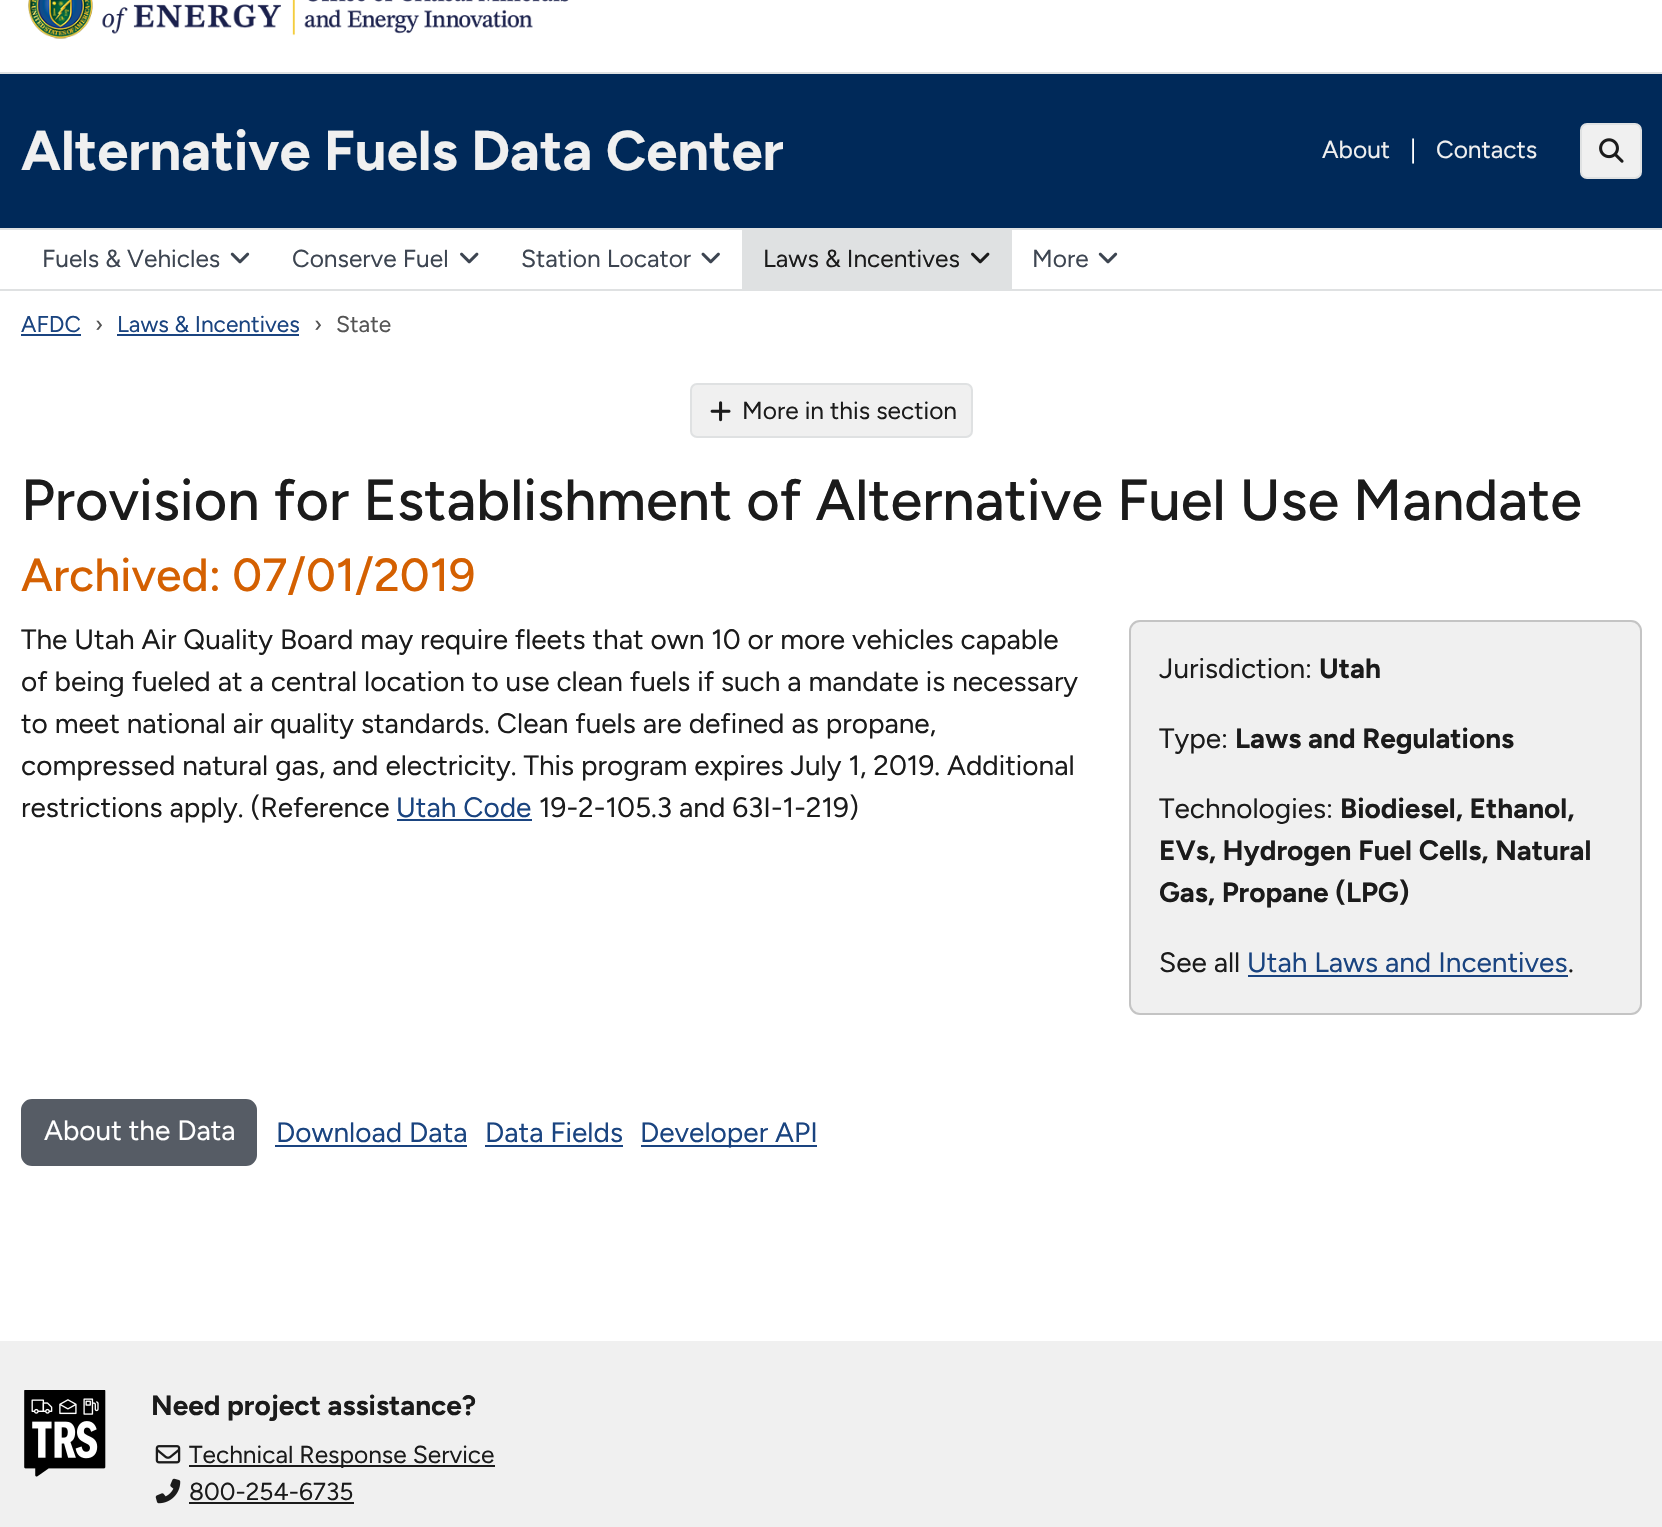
void draw(SkCanvas* c) {
SkPaint p;
p.setAntiAlias(true);
auto F=[&](const char* family, int weight, float size, bool italic = false){SkFontStyle style(weight, SkFontStyle::kNormal_Width,italic ? SkFontStyle::kItalic_Slant : SkFontStyle::kUpright_Slant);SkFont result(fontMgr->matchFamilyStyle(family, style), size);result.setSubpixel(true);return result;};
auto T=[&](const char* s, float x, float y, const SkFont& font){c->drawString(s, x, y, font, p);};
auto R=[&](float x, float y, float w, float h){c->drawRect(SkRect::MakeXYWH(x, y, w, h), p);};
auto Q=[&](float x, float y, float w, float h, float radius){c->drawRoundRect(SkRect::MakeXYWH(x, y, w, h), radius, radius, p);};
auto I=[&](const char* path, float x, float y, float w, float h){auto image = SkImages::DeferredFromEncodedData(SkData::MakeFromFileName(path));c->drawImageRect(image, SkRect::MakeXYWH(x, y, w, h), SkSamplingOptions());};
c->clear(0xffffffff);
I("1.png",28,0,541,39);
p.setColor(0xff002959);
R(0,74,1662,154);
p.setColor(0xffdfe1e2);
R(0,72,1662,2);
R(0,228,1662,2);
auto f1 = F("Figtree",700,56);
p.setColor(0xfff0f0f0);
T("Alternative Fuels Data Center",21,170,f1);
auto f2 = F("Figtree",400,24.5);
T("About",1322,158,f2);
p.setColor(0xffffffff);
T("|",1410,158,f2);
p.setColor(0xfff0f0f0);
T("Contacts",1436,158,f2);
c->drawRoundRect(SkRect::MakeXYWH(1581,124,60,54),6,6,p);
p.setStroke(true);
p.setStrokeWidth(2);
p.setColor(0xffdfe1e2);
c->drawRoundRect(SkRect::MakeXYWH(1581,124,60,54),6,6,p);
I("2.png",1599,138,25,25);
p.setStroke(false);
R(0,289,1662,2);
p.setColor(0xff3d4551);
T("Fuels & Vehicles",42,267,f2);
I("3.png",230,252,20,12);
T("Conserve Fuel",292,267,f2);
I("4.png",460,252,19,12);
T("Station Locator",521,267,f2);
I("5.png",701,252,19,12);
p.setColor(0xffdfe1e2);
R(742,230,270,59);
p.setColor(0xff1b1b1b);
T("Laws & Incentives",763,267,f2);
I("6.png",971,252,19,12);
p.setColor(0xff3d4551);
T("More",1032,267,f2);
I("3.png",1098,252,20,12);
auto f3 = F("Figtree",400,22.75);
p.setColor(0xff1a4480);
T("AFDC",21,332,f3);
R(21,334,60,2);
p.setColor(0xff545454);
T("›",95,332,f3);
p.setColor(0xff1a4480);
T("Laws & Incentives",117,332,f3);
R(117,334,182,2);
p.setColor(0xff545454);
T("›",314,332,f3);
T("State",336,332,f3);
p.setColor(0xfff0f0f0);
c->drawRoundRect(SkRect::MakeXYWH(691,384,281,53),6,6,p);
p.setStroke(true);
p.setColor(0xffdfe1e2);
c->drawRoundRect(SkRect::MakeXYWH(691,384,281,53),6,6,p);
I("7.png",710,401,21,21);
p.setStroke(false);
p.setColor(0xff1b1b1b);
T("More in this section",742,419,f2);
auto f4 = F("Figtree",500,57.75);
T("Provision for Establishment of Alternative Fuel Use Mandate",21,520,f4);
auto f5 = F("Figtree",500,46.4);
p.setColor(0xffd46001);
T("Archived: 07/01/2019",21,591,f5);
auto f6 = F("Figtree",400,28);
p.setColor(0xff1b1b1b);
T("The Utah Air Quality Board may require fleets that own 10 or more vehicles capable",21,649,f6);
T("of being fueled at a central location to use clean fuels if such a mandate is necessary",21,691,f6);
T("to meet national air quality standards. Clean fuels are defined as propane,",21,733,f6);
T("compressed natural gas, and electricity. This program expires July 1, 2019. Additional",21,775,f6);
T("restrictions apply. (Reference",21,817,f6);
p.setColor(0xff1a4480);
T("Utah Code",396,817,f6);
R(397,819,135,2);
p.setColor(0xff1b1b1b);
T("19-2-105.3 and 63I-1-219)",539,817,f6);
p.setColor(0xfff0f0f0);
Q(1129,620,513,395,11);
p.setStroke(true);
p.setColor(0x2e000000);
c->drawRoundRect(SkRect::MakeXYWH(1130,621,511,393),10,10,p);
p.setStroke(false);
p.setColor(0xff1b1b1b);
T("Jurisdiction:",1159,678,f6);
auto f7 = F("Figtree",700,28);
T("Utah",1319,678,f7);
T("Type:",1159,748,f6);
T("Laws and Regulations",1235,748,f7);
T("Technologies:",1159,818,f6);
T("Biodiesel, Ethanol,",1340,818,f7);
T("EVs, Hydrogen Fuel Cells, Natural",1159,860,f7);
T("Gas, Propane (LPG)",1159,902,f7);
T("See all",1159,972,f6);
p.setColor(0xff1a4480);
T("Utah Laws and Incentives",1247,972,f6);
R(1248,975,320,2);
p.setColor(0xff1b1b1b);
T(".",1568,972,f6);
p.setColor(0xff565c65);
c->drawRoundRect(SkRect::MakeXYWH(22,1100,234,65),10,10,p);
p.setStroke(true);
c->drawRoundRect(SkRect::MakeXYWH(22,1100,234,65),10,10,p);
p.setStroke(false);
p.setColor(0xffffffff);
T("About the Data",44,1140,f6);
p.setColor(0xff1a4480);
T("Download Data",276,1142,f6);
R(275,1145,192,2);
T("Data Fields",485,1142,f6);
R(485,1145,138,2);
R(641,1145,176,2);
T("Developer API",640,1142,f6);
p.setColor(0xfff0f0f0);
R(0,1341,1662,186);
I("8.png",24,1390,82,87);
p.setColor(0xff1b1b1b);
T("Need project assistance?",151,1415,f7);
I("9.png",155,1445,26,19);
R(189,1465,306,2);
T("Technical Response Service",189,1463,f2);
I("10.png",155,1478,26,26);
T("800-254-6735",189,1500,f2);
R(189,1502,165,2);
}
